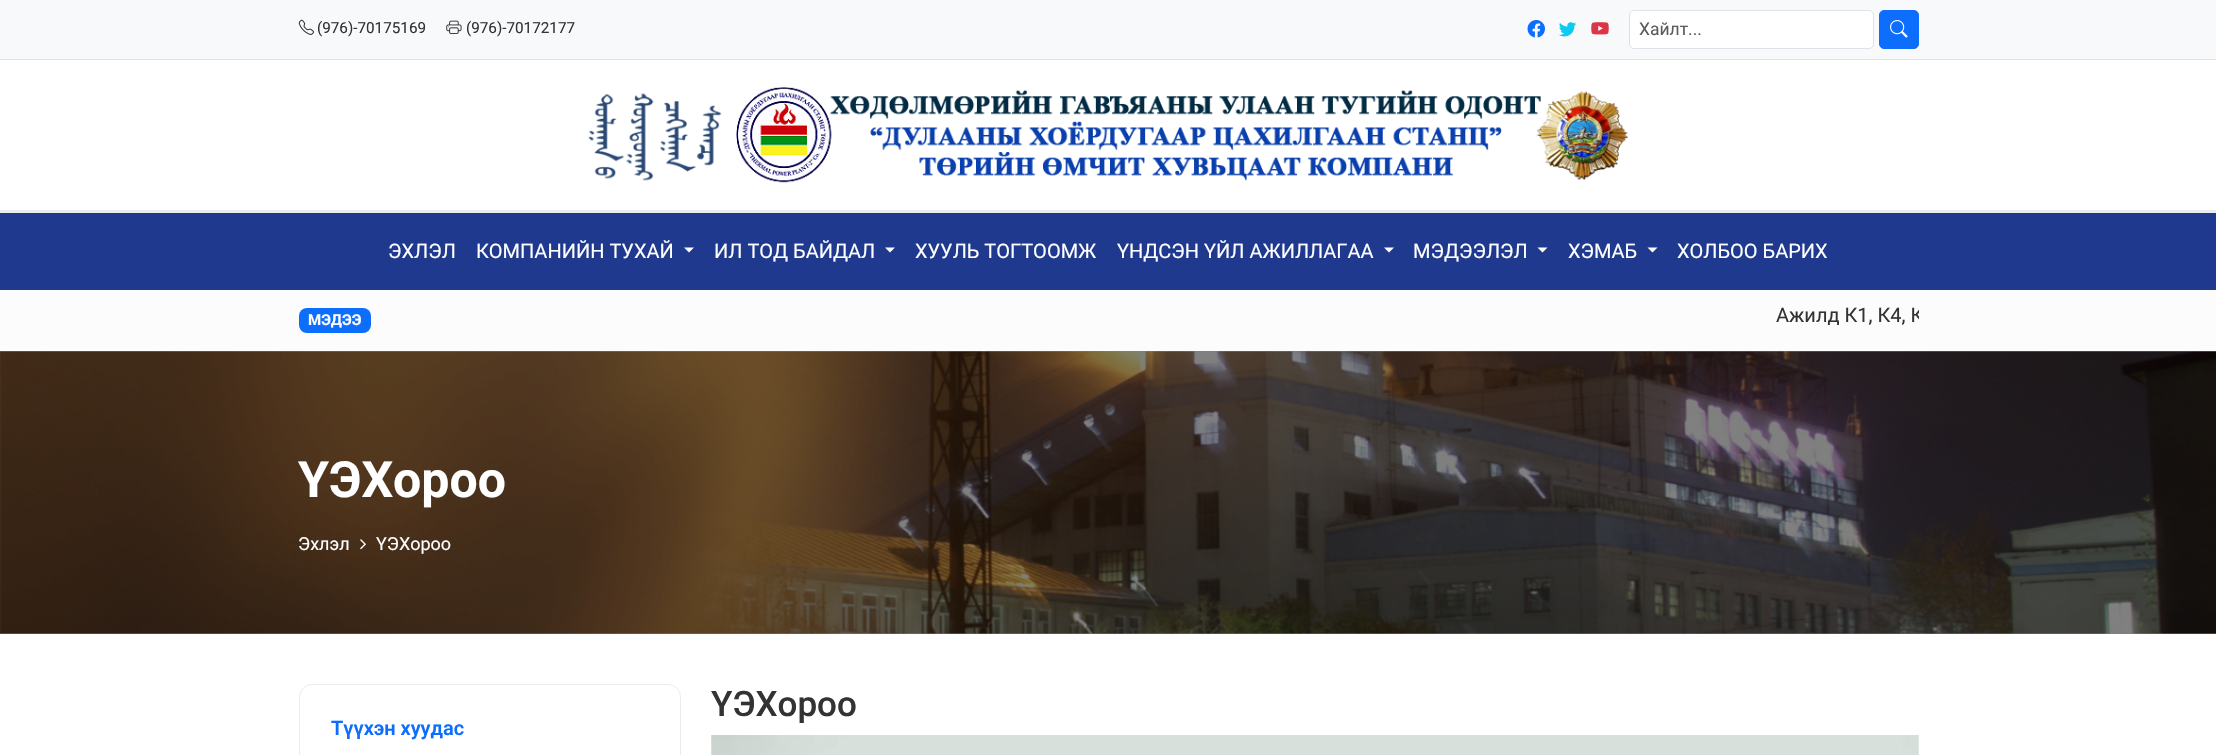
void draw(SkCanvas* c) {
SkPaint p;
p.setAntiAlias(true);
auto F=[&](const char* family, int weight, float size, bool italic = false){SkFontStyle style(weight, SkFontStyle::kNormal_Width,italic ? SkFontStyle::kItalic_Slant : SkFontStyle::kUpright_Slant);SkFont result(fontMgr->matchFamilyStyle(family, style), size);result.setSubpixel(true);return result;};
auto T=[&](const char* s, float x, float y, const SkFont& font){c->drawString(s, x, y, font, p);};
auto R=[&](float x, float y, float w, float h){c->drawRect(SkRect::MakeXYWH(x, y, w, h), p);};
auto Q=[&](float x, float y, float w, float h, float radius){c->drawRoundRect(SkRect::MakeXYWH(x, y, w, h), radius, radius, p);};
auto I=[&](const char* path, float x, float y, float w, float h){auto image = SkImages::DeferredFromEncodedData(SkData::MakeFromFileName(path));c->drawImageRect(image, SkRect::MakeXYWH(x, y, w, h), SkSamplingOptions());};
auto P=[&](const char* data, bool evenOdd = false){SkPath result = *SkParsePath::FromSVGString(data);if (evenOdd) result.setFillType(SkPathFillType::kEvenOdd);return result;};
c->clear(0xffffffff);
p.setColor(0xff808080);
R(0,351,2216,283);
p.setColor(0xfff8f9fa);
R(0,0,2216,59);
p.setColor(0xffdee2e6);
R(0,59,2216,1);
I("1.png",298,19,16,16);
auto f1 = F("Roboto",400,15.25);
p.setColor(0xff333333);
T("(976)-70175169",317,33,f1);
I("2.png",446,20,16,14);
T("(976)-70172177",466,33,f1);
I("3.png",1527,20,18,18);
I("4.png",1559,22,17,15);
I("5.png",1591,22,18,13);
p.setColor(0xffffffff);
c->drawRoundRect(SkRect::MakeXYWH(1629.5,10.5,244,38),4.5,4.5,p);
p.setStroke(true);
p.setStrokeWidth(1);
p.setColor(0xffdee2e6);
c->drawRoundRect(SkRect::MakeXYWH(1629.5,10.5,244,38),4.5,4.5,p);
auto f2 = F("Roboto",400,17.5);
p.setStroke(false);
p.setColor(0xff595c5f);
T("Хайлт...",1639,35,f2);
p.setColor(0xff0d6efd);
c->drawRoundRect(SkRect::MakeXYWH(1879.5,10.5,39,38),4.5,4.5,p);
p.setStroke(true);
c->drawRoundRect(SkRect::MakeXYWH(1879.5,10.5,39,38),4.5,4.5,p);
I("6.png",1890,20,18,18);
p.setStroke(false);
p.setColor(0xffe9ecef);
R(0,210,2216,3);
I("7.png",588,86,1040,97);
p.setColor(0xff1e398d);
R(0,213,2216,77);
auto f3 = F("Roboto",400,20);
p.setColor(0xffffffff);
T("ЭХЛЭЛ",388,258,f3);
T("КОМПАНИЙН ТУХАЙ",476,258,f3);
c->drawPath(P("M684 247.5h10l-5 5z"),p);
T("ИЛ ТОД БАЙДАЛ",714,258,f3);
c->drawPath(P("M885 247.5h10l-5 5z"),p);
T("ХУУЛЬ ТОГТООМЖ",915,258,f3);
T("ҮНДСЭН ҮЙЛ АЖИЛЛАГАА",1117,258,f3);
c->drawPath(P("M1384 247.5h10l-5 5z"),p);
T("МЭДЭЭЛЭЛ",1413,258,f3);
c->drawPath(P("M1537.5 247.5h10l-5 5z"),p);
T("ХЭМАБ",1568,258,f3);
c->drawPath(P("M1647.5 247.5h10l-5 5z"),p);
T("ХОЛБОО БАРИХ",1677,258,f3);
p.setColor(0xfffcfcfd);
R(0,290,2216,61);
p.setColor(0xff0d6efd);
Q(299,308,72,25,8);
auto f4 = F("Roboto",700,15);
p.setColor(0xffffffff);
T("МЭДЭЭ",308,325,f4);
c->save();
c->clipRect(SkRect::MakeXYWH(391,300,1528,31));
p.setColor(0xff333333);
T("Ажилд К1, К4, К",1776,322,f3);
c->restore();
I("8.png",0,351,2216,283);
auto f5 = F("Roboto",700,50);
p.setColor(0xffffffff);
T("ҮЭХороо",298,497,f5);
auto f6 = F("Roboto",400,18);
T("Эхлэл",298,550,f6);
I("9.png",360,539,6,11);
T("ҮЭХороо",376,550,f6);
auto f7 = F("Roboto",500,35);
p.setColor(0xff333333);
T("ҮЭХороо",711,716,f7);
I("10.png",711,735,1208,20);
p.setStroke(true);
p.setColor(0xffe9ecef);
c->drawRoundRect(SkRect::MakeXYWH(299.5,684.5,381,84),12.5,12.5,p);
auto f8 = F("Roboto",600,20);
p.setStroke(false);
p.setColor(0xff0d6efd);
T("Түүхэн хуудас",331,735,f8);
}
